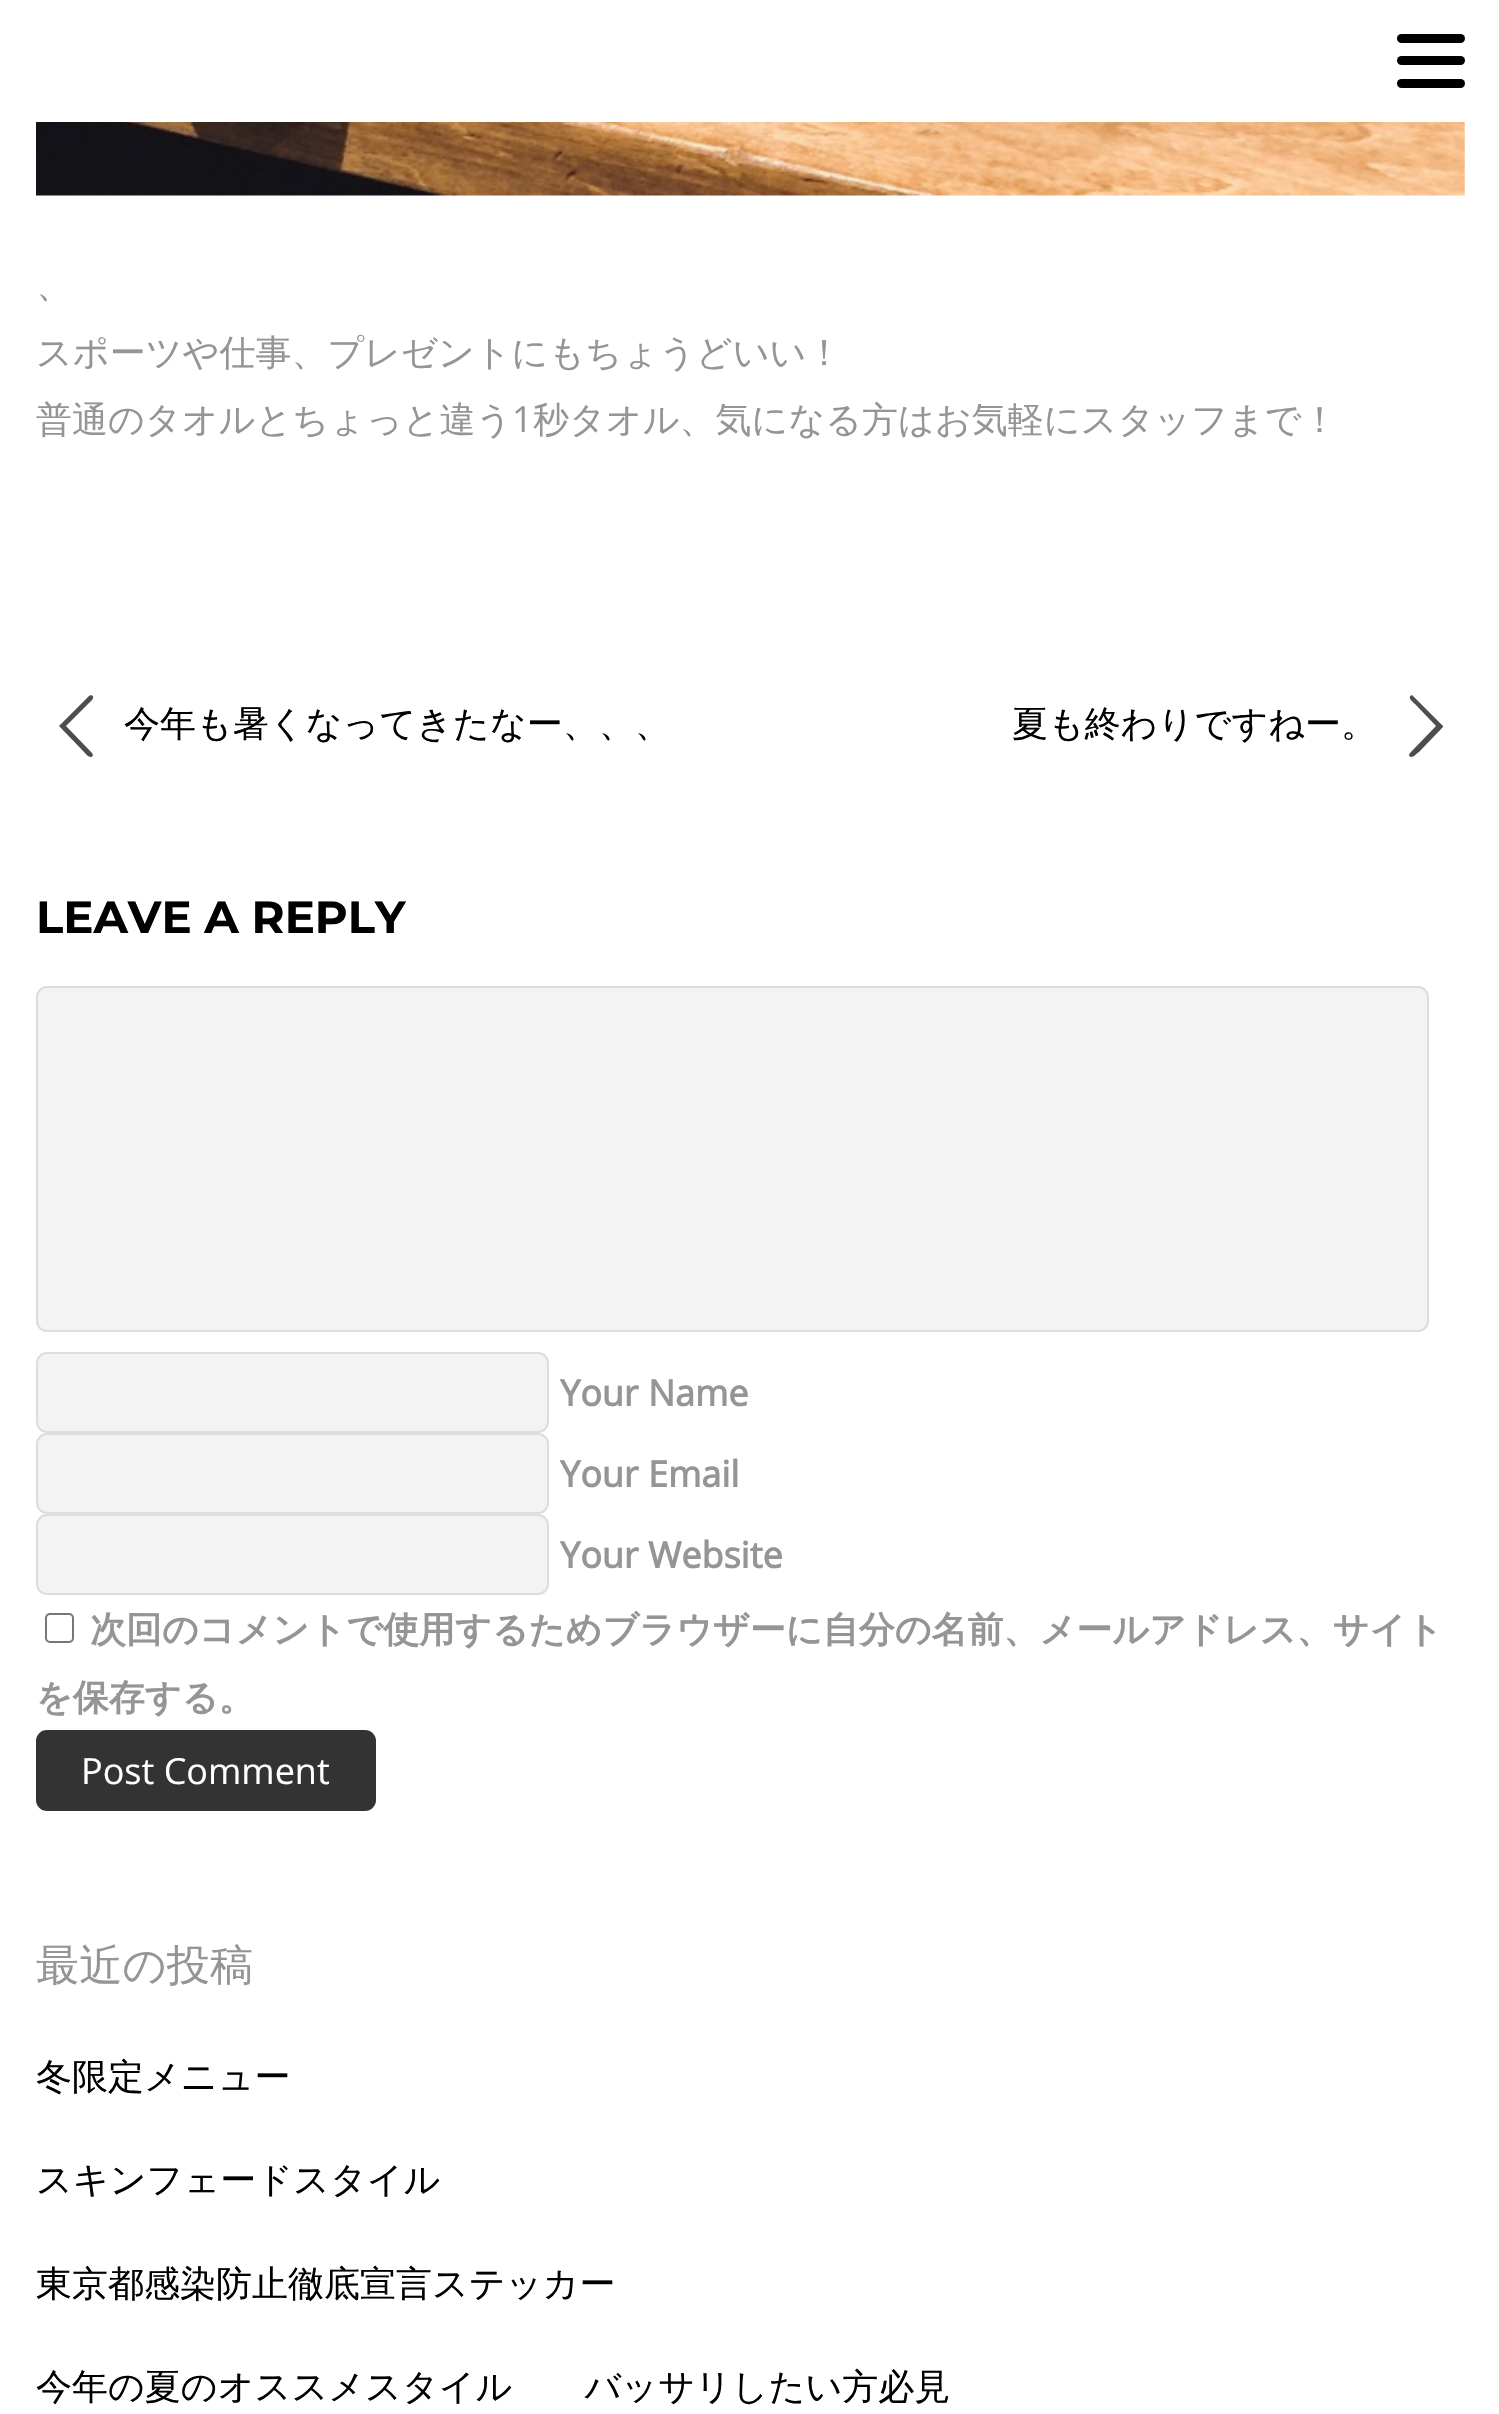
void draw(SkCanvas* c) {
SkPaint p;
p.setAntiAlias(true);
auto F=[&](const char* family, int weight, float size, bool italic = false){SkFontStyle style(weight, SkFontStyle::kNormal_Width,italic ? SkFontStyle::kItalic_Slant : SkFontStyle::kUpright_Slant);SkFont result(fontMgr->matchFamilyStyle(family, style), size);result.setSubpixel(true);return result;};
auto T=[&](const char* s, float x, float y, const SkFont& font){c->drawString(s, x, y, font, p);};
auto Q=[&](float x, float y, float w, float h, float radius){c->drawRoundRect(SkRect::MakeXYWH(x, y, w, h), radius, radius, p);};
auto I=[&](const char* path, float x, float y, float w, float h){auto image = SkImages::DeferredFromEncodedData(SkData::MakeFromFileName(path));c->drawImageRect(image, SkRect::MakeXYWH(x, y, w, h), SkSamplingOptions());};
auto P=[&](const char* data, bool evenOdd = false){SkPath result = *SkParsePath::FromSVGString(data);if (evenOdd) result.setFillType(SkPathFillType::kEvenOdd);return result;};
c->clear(0xffffffff);
p.setColor(0xff000000);
Q(1397,34,68,9,4.5);
Q(1397,56,68,9,4.5);
Q(1397,79,68,9,4.5);
I("1.png",36,122,1429,74);
auto f1 = F("WenQuanYi Zen Hei",500,36);
p.setColor(0xff959595);
T("、",36,297,f1);
T("スポーツや仕事、プレゼントにもちょうどいい！",36,365,f1);
T("普通のタオルとちょっと違う",36,432,f1);
auto f2 = F("Open Sans",400,36);
T("1",512,432,f2);
T("秒タオル、気になる方はお気軽にスタッフまで！",533,432,f1);
p.setColor(0xff4d4d4d);
c->drawPath(P("M92 753l1 2c-2 6-9-3-9-3l-24-25l-1-1l30-30l2-1c6 2-2 8-3 9l-22 22z"),p);
p.setColor(0xff000000);
T("今年も暑くなってきたなー、、、",124,736,f1);
T("夏も終わりですねー。",1012,736,f1);
p.setColor(0xff4d4d4d);
c->drawPath(P("M1410 753l26-27l-21-22c-1-1-9-7-3-9l1 1l30 30v1l-24 25c-1 0-8 9-10 3z"),p);
auto f3 = F("Montserrat",700,45);
p.setColor(0xff000000);
T("LEAVE A REPLY",36,933,f3);
p.setColor(0xfff3f3f3);
c->drawRoundRect(SkRect::MakeXYWH(37,987,1391,344),10,10,p);
p.setStroke(true);
p.setStrokeWidth(2);
p.setColor(0xffdddddd);
c->drawRoundRect(SkRect::MakeXYWH(37,987,1391,344),10,10,p);
p.setStroke(false);
p.setColor(0xfff3f3f3);
c->drawRoundRect(SkRect::MakeXYWH(37,1353,511,79),10,10,p);
p.setStroke(true);
p.setColor(0xffdddddd);
c->drawRoundRect(SkRect::MakeXYWH(37,1353,511,79),10,10,p);
auto f4 = F("Open Sans",700,36);
p.setStroke(false);
p.setColor(0xff959595);
T("Your Name",560,1406,f4);
p.setColor(0xfff3f3f3);
c->drawRoundRect(SkRect::MakeXYWH(37,1434,511,79),10,10,p);
p.setStroke(true);
p.setColor(0xffdddddd);
c->drawRoundRect(SkRect::MakeXYWH(37,1434,511,79),10,10,p);
p.setStroke(false);
p.setColor(0xff959595);
T("Your Email",560,1487,f4);
p.setColor(0xfff3f3f3);
c->drawRoundRect(SkRect::MakeXYWH(37,1515,511,79),10,10,p);
p.setStroke(true);
p.setColor(0xffdddddd);
c->drawRoundRect(SkRect::MakeXYWH(37,1515,511,79),10,10,p);
p.setStroke(false);
p.setColor(0xff959595);
T("Your Website",560,1568,f4);
p.setStroke(true);
p.setColor(0xff767676);
c->drawRoundRect(SkRect::MakeXYWH(46,1614,27,28),4,4,p);
auto f5 = F("WenQuanYi Zen Hei",700,36);
p.setStroke(false);
p.setColor(0xff959595);
T("次回のコメントで使用するためブラウザーに自分の名前、メールアドレス、サイト",90,1642,f5);
T("を保存する。",36,1710,f5);
p.setColor(0xff333333);
Q(36,1730,340,81,11);
p.setColor(0xffffffff);
T("Post Comment",81,1784,f2);
auto f6 = F("WenQuanYi Zen Hei",500,43.25);
p.setColor(0xff959595);
T("最近の投稿",36,1980,f6);
p.setColor(0xff000000);
T("冬限定メニュー",36,2089,f1);
T("スキンフェードスタイル",36,2192,f1);
T("東京都感染防止徹底宣言ステッカー",36,2296,f1);
T("今年の夏のオススメスタイル　　バッサリしたい方必見",36,2399,f1);
}
